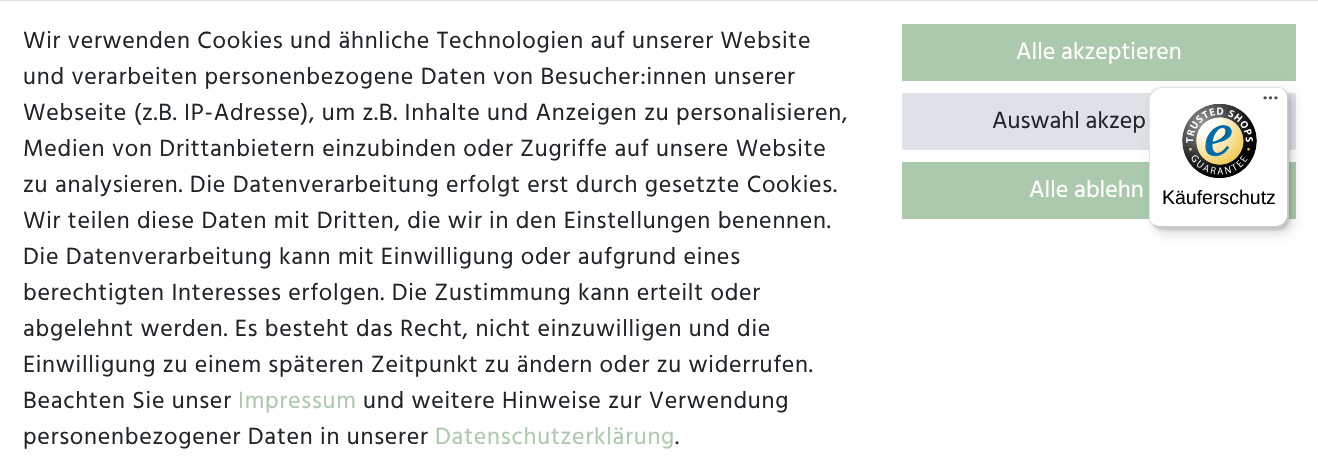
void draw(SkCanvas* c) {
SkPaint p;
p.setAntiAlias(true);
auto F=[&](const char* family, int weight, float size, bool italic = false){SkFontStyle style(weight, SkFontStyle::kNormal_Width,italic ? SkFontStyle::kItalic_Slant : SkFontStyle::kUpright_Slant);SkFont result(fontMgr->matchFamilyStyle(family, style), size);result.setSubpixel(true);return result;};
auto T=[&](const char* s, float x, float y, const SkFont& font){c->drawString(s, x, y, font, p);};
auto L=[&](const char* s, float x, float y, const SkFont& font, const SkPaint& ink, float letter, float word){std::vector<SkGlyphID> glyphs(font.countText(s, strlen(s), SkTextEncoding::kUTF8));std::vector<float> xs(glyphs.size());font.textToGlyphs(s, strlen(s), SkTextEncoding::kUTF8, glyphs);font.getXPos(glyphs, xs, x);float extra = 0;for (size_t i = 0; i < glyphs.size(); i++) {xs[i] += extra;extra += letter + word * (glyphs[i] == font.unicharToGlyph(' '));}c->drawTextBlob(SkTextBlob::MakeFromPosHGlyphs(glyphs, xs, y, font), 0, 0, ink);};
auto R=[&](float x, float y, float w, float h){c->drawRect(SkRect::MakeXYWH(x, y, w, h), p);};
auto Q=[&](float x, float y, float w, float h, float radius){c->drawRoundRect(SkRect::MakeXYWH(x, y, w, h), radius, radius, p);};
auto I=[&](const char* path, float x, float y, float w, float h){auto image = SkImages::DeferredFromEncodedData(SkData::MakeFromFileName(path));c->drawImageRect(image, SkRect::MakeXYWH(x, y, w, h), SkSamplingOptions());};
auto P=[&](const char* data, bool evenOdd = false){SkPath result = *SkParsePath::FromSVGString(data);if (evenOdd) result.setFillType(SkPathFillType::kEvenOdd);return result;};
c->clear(0xffffffff);
p.setColor(0xffdee2e6);
R(0,0,1318,1);
auto f1 = F("Hind",400,24);
p.setColor(0xff212529);
L("Wir verwenden Cookies und ähnliche Technologien auf unserer Website",23,48,f1,p,.75,0);
L("und verarbeiten personenbezogene Daten von Besucher:innen unserer",23,84,f1,p,.75,0);
L("Webseite (z.B. IP-Adresse), um z.B. Inhalte und Anzeigen zu personalisieren,",23,120,f1,p,.75,0);
L("Medien von Drittanbietern einzubinden oder Zugriffe auf unsere Website",23,156,f1,p,.75,0);
L("zu analysieren. Die Datenverarbeitung erfolgt erst durch gesetzte Cookies.",23,192,f1,p,.75,0);
L("Wir teilen diese Daten mit Dritten, die wir in den Einstellungen benennen.",23,228,f1,p,.75,0);
L("Die Datenverarbeitung kann mit Einwilligung oder aufgrund eines",23,264,f1,p,.75,0);
L("berechtigten Interesses erfolgen. Die Zustimmung kann erteilt oder",23,300,f1,p,.75,0);
L("abgelehnt werden. Es besteht das Recht, nicht einzuwilligen und die",23,336,f1,p,.75,0);
L("Einwilligung zu einem späteren Zeitpunkt zu ändern oder zu widerrufen.",23,372,f1,p,.75,0);
L("Beachten Sie unser",23,408,f1,p,.75,0);
p.setColor(0xffadc9ad);
L("Impressum",238,408,f1,p,.75,0);
p.setColor(0xff212529);
L("und weitere Hinweise zur Verwendung",363,408,f1,p,.75,0);
L("personenbezogener Daten in unserer",23,444,f1,p,.75,0);
p.setColor(0xffadc9ad);
L("Datenschutzerklärung",435,444,f1,p,.75,0);
p.setColor(0xff212529);
L(".",675,444,f1,p,.75,0);
p.setColor(0xffadc9ad);
R(902,24,394,57);
p.setColor(0xffffffff);
T("Alle akzeptieren",1016,59,f1);
p.setColor(0xffdee2e6);
c->drawRoundRect(SkRect::MakeXYWH(903,94,392,55),1,1,p);
p.setStroke(true);
p.setStrokeWidth(2);
c->drawRoundRect(SkRect::MakeXYWH(903,94,392,55),1,1,p);
p.setStroke(false);
p.setColor(0xff212529);
T("Auswahl akzep",992,128,f1);
p.setColor(0xffadc9ad);
R(902,162,394,57);
p.setColor(0xffffffff);
T("Alle ablehn",1029,197,f1);
p.setColor(0x26000000);
p.setMaskFilter(SkMaskFilter::MakeBlur(kNormal_SkBlurStyle, 6));
c->drawRoundRect(SkRect::MakeXYWH(1154,92,139,141),12,12,p);
p.setMaskFilter(nullptr);
p.setMaskFilter(SkMaskFilter::MakeBlur(kNormal_SkBlurStyle, 1.5));
c->drawRoundRect(SkRect::MakeXYWH(1151,89,139,141),12,12,p);
p.setMaskFilter(nullptr);
p.setColor(0xffffffff);
Q(1149,87,140,141,12);
p.setColor(0x1a000000);
c->drawPath(P("M1162 88h116c3 0 6 1 8 3c-2-2-5-4-9-4h-116c-7 0-12 5-12 12v117c0 3 1 5 3 7c-1-1-2-3-2-5v-118c0-6 6-12 12-12z"),p);
p.setColor(0x33000000);
c->drawPath(P("M1150 221c2 4 6 7 11 7h116c7 0 12-5 12-12v-117c0-5-3-9-7-11c3 2 5 6 5 10v116c0 7-5 12-12 12h-115c-4 0-8-2-10-5z"),p);
p.setColor(0x33323232);
c->drawPath(P("M1153 225c2 2 5 3 8 3h116c7 0 12-5 12-12v-117c0-4-2-7-4-9c2 2 3 5 3 8v117c0 7-6 12-12 12h-116c-3 0-5-1-7-2z"),p);
p.setColor(0x4dffffff);
c->drawPath(P("M1152 224c2 2 5 4 9 4h116c7 0 12-5 12-12v-117c0-5-2-8-6-10c3 2 5 5 5 9v117c0 7-6 12-12 12h-116c-3 0-6-1-8-3z"),p);
I("1.png",1263,96,15,4);
I("2.png",1182,104,75,75);
auto f2 = F("Liberation Sans",400,19.5);
p.setColor(0xff000000);
T("Käuferschutz",1162,204,f2);
}
